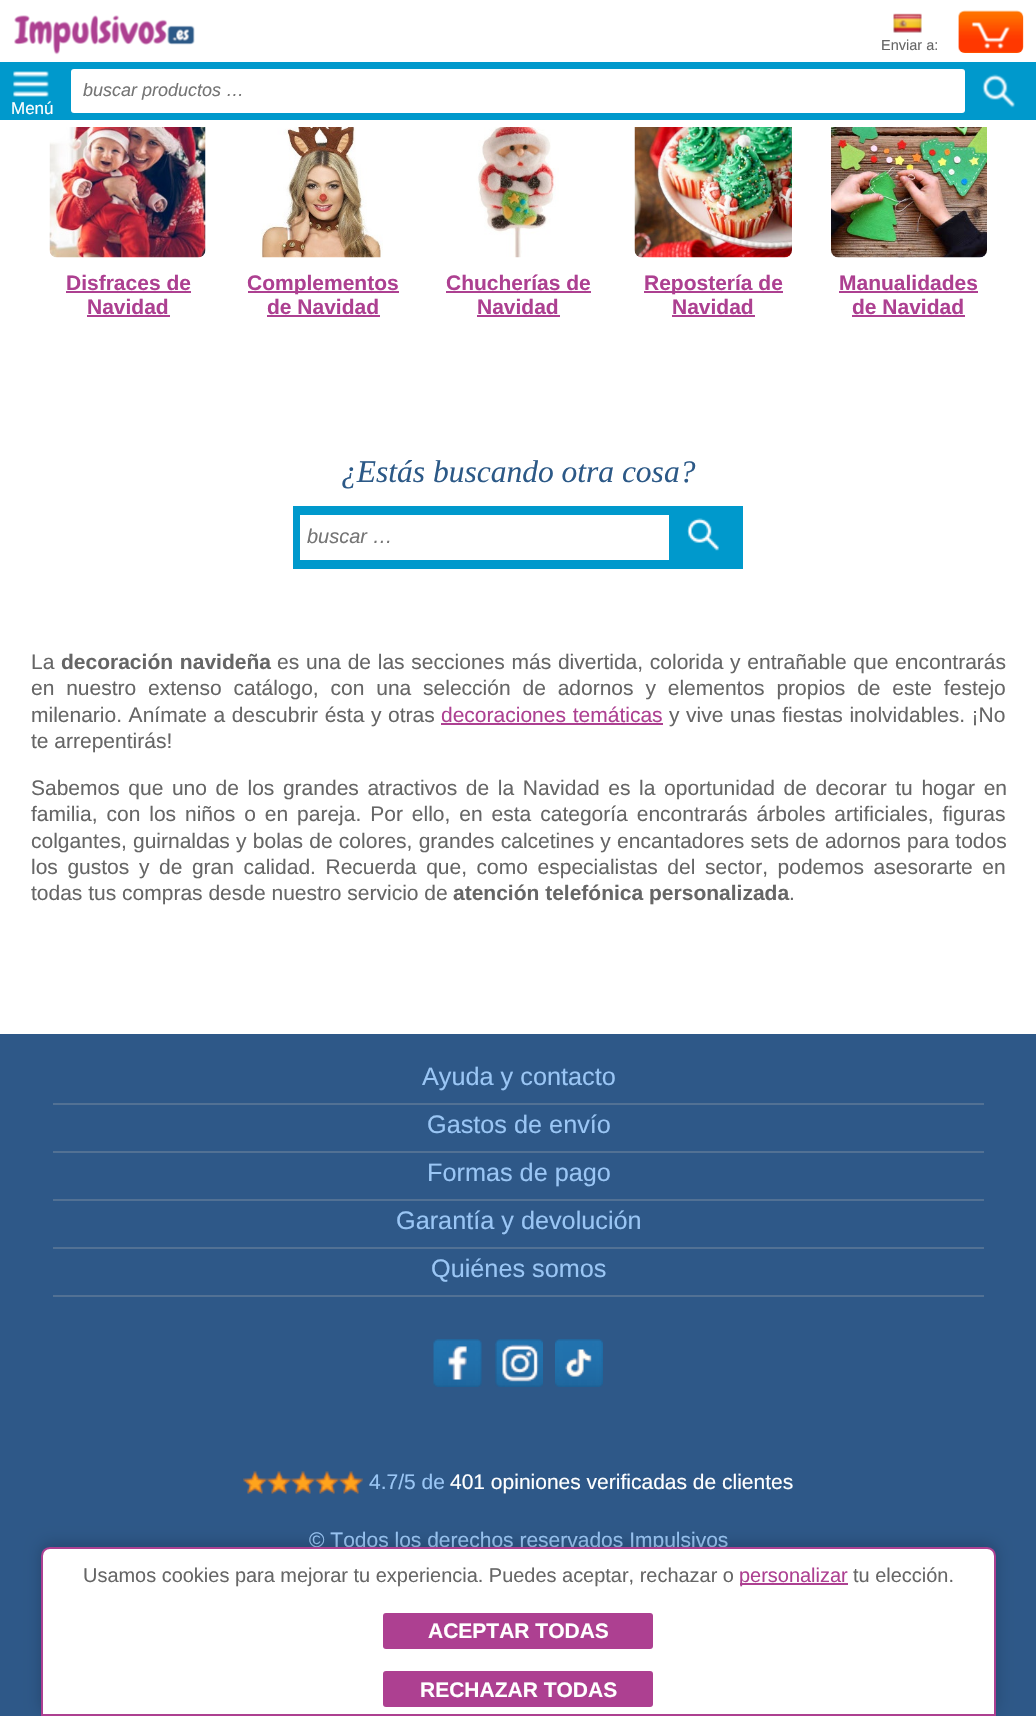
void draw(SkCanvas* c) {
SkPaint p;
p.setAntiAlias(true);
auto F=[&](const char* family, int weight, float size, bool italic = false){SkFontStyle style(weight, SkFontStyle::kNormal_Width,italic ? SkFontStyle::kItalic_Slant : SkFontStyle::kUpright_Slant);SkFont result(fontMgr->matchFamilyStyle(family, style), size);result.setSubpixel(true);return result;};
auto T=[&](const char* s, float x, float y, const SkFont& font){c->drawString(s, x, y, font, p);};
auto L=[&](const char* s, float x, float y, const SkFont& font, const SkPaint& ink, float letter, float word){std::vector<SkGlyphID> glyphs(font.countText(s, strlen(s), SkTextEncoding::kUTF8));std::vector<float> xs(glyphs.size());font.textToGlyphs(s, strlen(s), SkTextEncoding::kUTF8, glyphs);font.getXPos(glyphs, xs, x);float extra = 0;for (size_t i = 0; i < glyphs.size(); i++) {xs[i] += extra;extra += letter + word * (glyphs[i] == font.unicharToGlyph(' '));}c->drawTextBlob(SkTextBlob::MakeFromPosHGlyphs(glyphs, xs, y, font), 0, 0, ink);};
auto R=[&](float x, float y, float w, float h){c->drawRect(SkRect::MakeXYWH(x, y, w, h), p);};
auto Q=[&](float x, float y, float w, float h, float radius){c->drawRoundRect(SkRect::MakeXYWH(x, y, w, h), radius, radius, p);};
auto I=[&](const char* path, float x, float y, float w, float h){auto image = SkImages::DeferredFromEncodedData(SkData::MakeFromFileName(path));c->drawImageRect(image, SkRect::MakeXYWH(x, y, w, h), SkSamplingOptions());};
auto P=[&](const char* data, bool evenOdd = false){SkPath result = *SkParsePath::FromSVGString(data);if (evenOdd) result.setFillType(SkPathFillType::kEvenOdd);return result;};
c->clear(0xffffffff);
I("1.png",14,15,181,40);
I("2.png",893,13,29,20);
auto f1 = F("Liberation Sans",400,14.5);
p.setColor(0xff666666);
T("Enviar a:",881,50,f1);
p.setColor(0xffff5d00);
Q(959,12,64,41,6);
I("3.png",958,10,66,43);
I("4.png",971,22,39,27);
p.setColor(0xff0099cc);
R(0,62,1036,58);
p.setColor(0xffffffff);
Q(71,69,894,44,3);
auto f2 = F("Liberation Sans",400,18,true);
p.setColor(0xff757575);
T("buscar productos …",83,96,f2);
I("5.png",982,74,33,34);
I("6.png",13,71,36,26);
auto f3 = F("Liberation Sans",400,17);
p.setColor(0xffffffff);
T("Menú",11,114,f3);
I("7.png",49,127,157,131);
auto f4 = F("Liberation Sans",700,21);
p.setColor(0xffad4091);
T("Disfraces de",66,290,f4);
R(66,291,125,2);
T("Navidad",87,314,f4);
R(87,315,83,2);
I("8.png",260,127,123,131);
R(248,291,151,2);
T("Complementos",247,290,f4);
T("de Navidad",267,314,f4);
R(267,315,113,2);
I("9.png",476,127,83,131);
T("Chucherías de",446,290,f4);
R(446,291,145,2);
T("Navidad",477,314,f4);
R(477,315,83,2);
I("10.png",634,127,158,131);
R(644,291,139,2);
T("Repostería de",644,290,f4);
T("Navidad",672,314,f4);
R(672,315,83,2);
I("11.png",831,127,156,131);
T("Manualidades",839,290,f4);
R(839,291,139,2);
T("de Navidad",852,314,f4);
R(852,315,113,2);
auto f5 = F("Liberation Serif",400,31.5,true);
p.setColor(0xff2c5987);
T("¿Estás buscando otra cosa?",341,482,f5);
p.setColor(0xff0099cc);
R(293,506,450,63);
p.setColor(0xffffffff);
R(300,515,369,45);
auto f6 = F("Liberation Sans",400,20,true);
p.setColor(0xff757575);
T("buscar …",307,543,f6);
I("12.png",687,518,32,33);
auto f7 = F("Liberation Sans",400,21);
p.setColor(0xff666666);
T("La",31,669,f7);
L("decoración navideña",61,669,f4,p,0,1);
L("es una de las secciones más divertida, colorida y entrañable que encontrarás",277,669,f7,p,0,.9);
L("en nuestro extenso catálogo, con una selección de adornos y elementos propios de este festejo",31,695,f7,p,0,6);
L("milenario. Anímate a descubrir ésta y otras",31,722,f7,p,0,.75);
p.setColor(0xffad4091);
L("decoraciones temáticas",441,722,f7,p,0,1);
R(441,723,222,2);
p.setColor(0xff666666);
L("y vive unas fiestas inolvidables. ¡No",669,722,f7,p,0,.75);
T("te arrepentirás!",31,748,f7);
L("Sabemos que uno de los grandes atractivos de la Navidad es la oportunidad de decorar tu hogar en",31,795,f7,p,0,2.75);
L("familia, con los niños o en pareja. Por ello, en esta categoría encontrarás árboles artificiales, figuras",31,821,f7,p,0,3.1);
L("colgantes, guirnaldas y bolas de colores, grandes calcetines y encantadores sets de adornos para todos",31,848,f7,p,0,.4);
L("los gustos y de gran calidad. Recuerda que, como especialistas del sector, podemos asesorarte en",31,874,f7,p,0,3.75);
T("todas tus compras desde nuestro servicio de",31,900,f7);
T("atención telefónica personalizada",453,900,f4);
T(".",789,900,f7);
p.setColor(0xff2e5888);
R(0,1034,1036,682);
p.setColor(0xff527194);
R(53,1103,931,2);
auto f8 = F("Liberation Sans",400,25.25);
p.setColor(0xff9ac6f5);
T("Ayuda y contacto",422,1085,f8);
p.setColor(0xff527194);
R(53,1151,931,2);
p.setColor(0xff9ac6f5);
T("Gastos de envío",427,1133,f8);
p.setColor(0xff527194);
R(53,1199,931,2);
p.setColor(0xff9ac6f5);
T("Formas de pago",427,1181,f8);
p.setColor(0xff527194);
R(53,1247,931,2);
p.setColor(0xff9ac6f5);
T("Garantía y devolución",396,1229,f8);
p.setColor(0xff527194);
R(53,1295,931,2);
p.setColor(0xff9ac6f5);
T("Quiénes somos",431,1277,f8);
I("13.png",433,1339,49,48);
I("14.png",495,1339,48,48);
I("15.png",555,1339,48,48);
I("16.png",243,1471,120,23);
T("4.7/5 de",369,1489,f7);
p.setColor(0xffffffff);
T("401 opiniones verificadas de clientes",450,1489,f7);
p.setColor(0xff9ac6f5);
T("© Todos los derechos reservados Impulsivos",309,1547,f7);
p.setColor(0x33000000);
p.setMaskFilter(SkMaskFilter::MakeBlur(kNormal_SkBlurStyle, 7.5));
c->drawRoundRect(SkRect::MakeXYWH(41,1544,955,169),9,9,p);
p.setMaskFilter(nullptr);
p.setColor(0xffffffff);
c->drawPath(P("M50 1548h937c4.5 0 8 3.5 8 8v159h-953v-159c0-4.5 3.5-8 8-8z"),p);
p.setStroke(true);
p.setStrokeWidth(2);
p.setColor(0xffad4091);
c->drawPath(P("M50 1548h937c4.5 0 8 3.5 8 8v159h-953v-159c0-4.5 3.5-8 8-8z"),p);
auto f9 = F("Liberation Sans",400,19.95);
p.setStroke(false);
p.setColor(0xff666666);
T("Usamos cookies para mejorar tu experiencia. Puedes aceptar, rechazar o",83,1582,f9);
p.setColor(0xffad4091);
R(740,1583,108,2);
T("personalizar",739,1582,f9);
p.setColor(0xff666666);
T("tu elección.",853,1582,f9);
p.setColor(0xffad4091);
Q(383,1613,270,36,3);
p.setColor(0xffffffff);
T("ACEPTAR TODAS",428,1638,f4);
p.setColor(0xffad4091);
Q(383,1671,270,36,3);
p.setColor(0xffffffff);
T("RECHAZAR TODAS",420,1697,f4);
}
